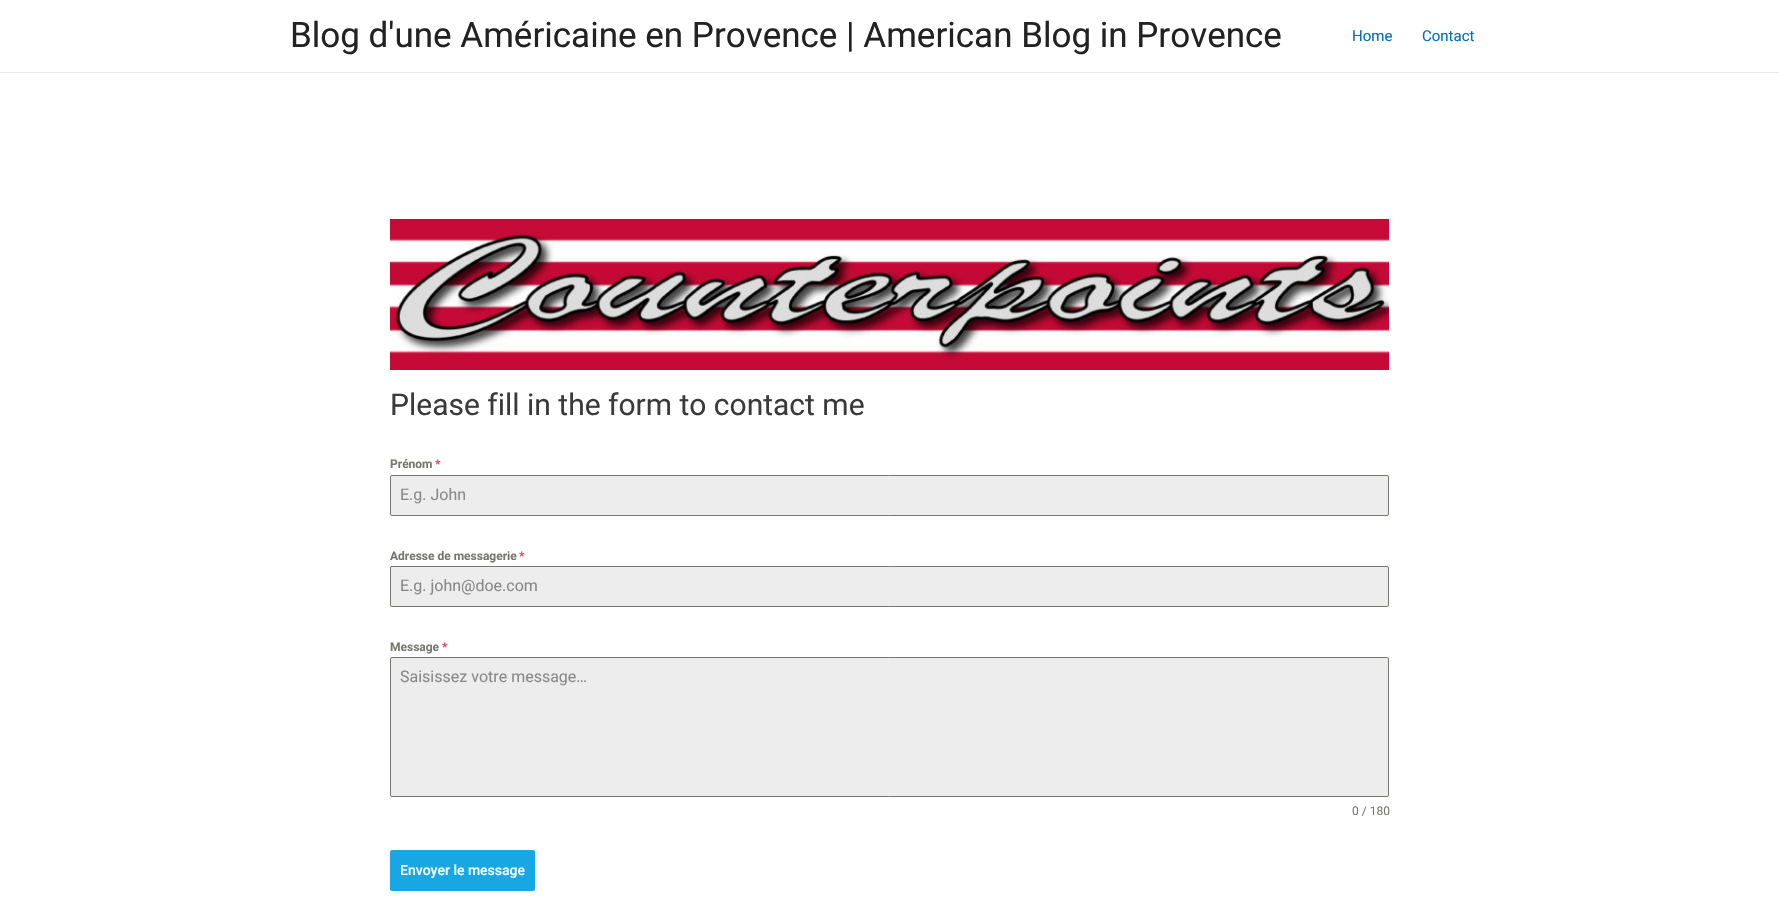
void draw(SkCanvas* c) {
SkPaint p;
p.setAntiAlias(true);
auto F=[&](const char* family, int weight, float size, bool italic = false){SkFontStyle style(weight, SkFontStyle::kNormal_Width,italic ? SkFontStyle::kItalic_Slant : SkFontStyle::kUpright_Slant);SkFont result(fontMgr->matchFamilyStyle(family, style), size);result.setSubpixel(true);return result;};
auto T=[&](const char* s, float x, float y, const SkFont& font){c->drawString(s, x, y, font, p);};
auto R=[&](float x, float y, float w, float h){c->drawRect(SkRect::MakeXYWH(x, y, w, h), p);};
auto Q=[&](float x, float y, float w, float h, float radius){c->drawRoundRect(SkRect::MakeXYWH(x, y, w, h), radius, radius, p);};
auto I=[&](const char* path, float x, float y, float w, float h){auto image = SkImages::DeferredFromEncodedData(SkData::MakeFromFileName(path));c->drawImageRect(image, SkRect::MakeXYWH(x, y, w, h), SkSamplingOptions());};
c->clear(0xffffffff);
p.setColor(0xffeaeaea);
R(0,72,1779,1);
auto f1 = F("Roboto",400,35);
p.setColor(0xff222222);
T("Blog d'une Américaine en Provence | American Blog in Provence",290,47,f1);
auto f2 = F("Roboto",400,15);
p.setColor(0xff0170b9);
T("Home",1352,41,f2);
T("Contact",1422,41,f2);
I("1.png",390,219,999,151);
auto f3 = F("Roboto",400,30);
p.setColor(0xff3a3a3a);
T("Please fill in the form to contact me",390,415,f3);
auto f4 = F("Roboto",700,12);
p.setColor(0xff777771);
T("Prénom",390,468,f4);
p.setColor(0xffe04562);
T("*",435,468,f4);
p.setColor(0xffededed);
c->drawRoundRect(SkRect::MakeXYWH(390.5,475.5,998,40),1.5,1.5,p);
p.setStroke(true);
p.setStrokeWidth(1);
p.setColor(0xff777771);
c->drawRoundRect(SkRect::MakeXYWH(390.5,475.5,998,40),1.5,1.5,p);
auto f5 = F("Roboto",400,16);
p.setStroke(false);
p.setColor(0xff888888);
T("E.g. John",400,500,f5);
p.setColor(0xff777771);
T("Adresse de messagerie",390,560,f4);
p.setColor(0xffe04562);
T("*",519,560,f4);
p.setColor(0xffededed);
c->drawRoundRect(SkRect::MakeXYWH(390.5,566.5,998,40),1.5,1.5,p);
p.setStroke(true);
p.setColor(0xff777771);
c->drawRoundRect(SkRect::MakeXYWH(390.5,566.5,998,40),1.5,1.5,p);
p.setStroke(false);
p.setColor(0xff888888);
T("E.g. john@doe.com",400,591,f5);
p.setColor(0xff777771);
T("Message",390,651,f4);
p.setColor(0xffe04562);
T("*",442,651,f4);
p.setColor(0xffededed);
c->drawRoundRect(SkRect::MakeXYWH(390.5,657.5,998,139),1.5,1.5,p);
p.setStroke(true);
p.setColor(0xff777771);
c->drawRoundRect(SkRect::MakeXYWH(390.5,657.5,998,139),1.5,1.5,p);
p.setStroke(false);
p.setColor(0xff888888);
T("Saisissez votre message…",400,682,f5);
auto f6 = F("Roboto",400,12);
p.setColor(0xff777771);
T("0 / 180",1352,815,f6);
p.setColor(0xff17a8e3);
Q(390,850,145,41,2);
auto f7 = F("Roboto",500,14);
p.setColor(0xffffffff);
T("Envoyer le message",400,875,f7);
}
